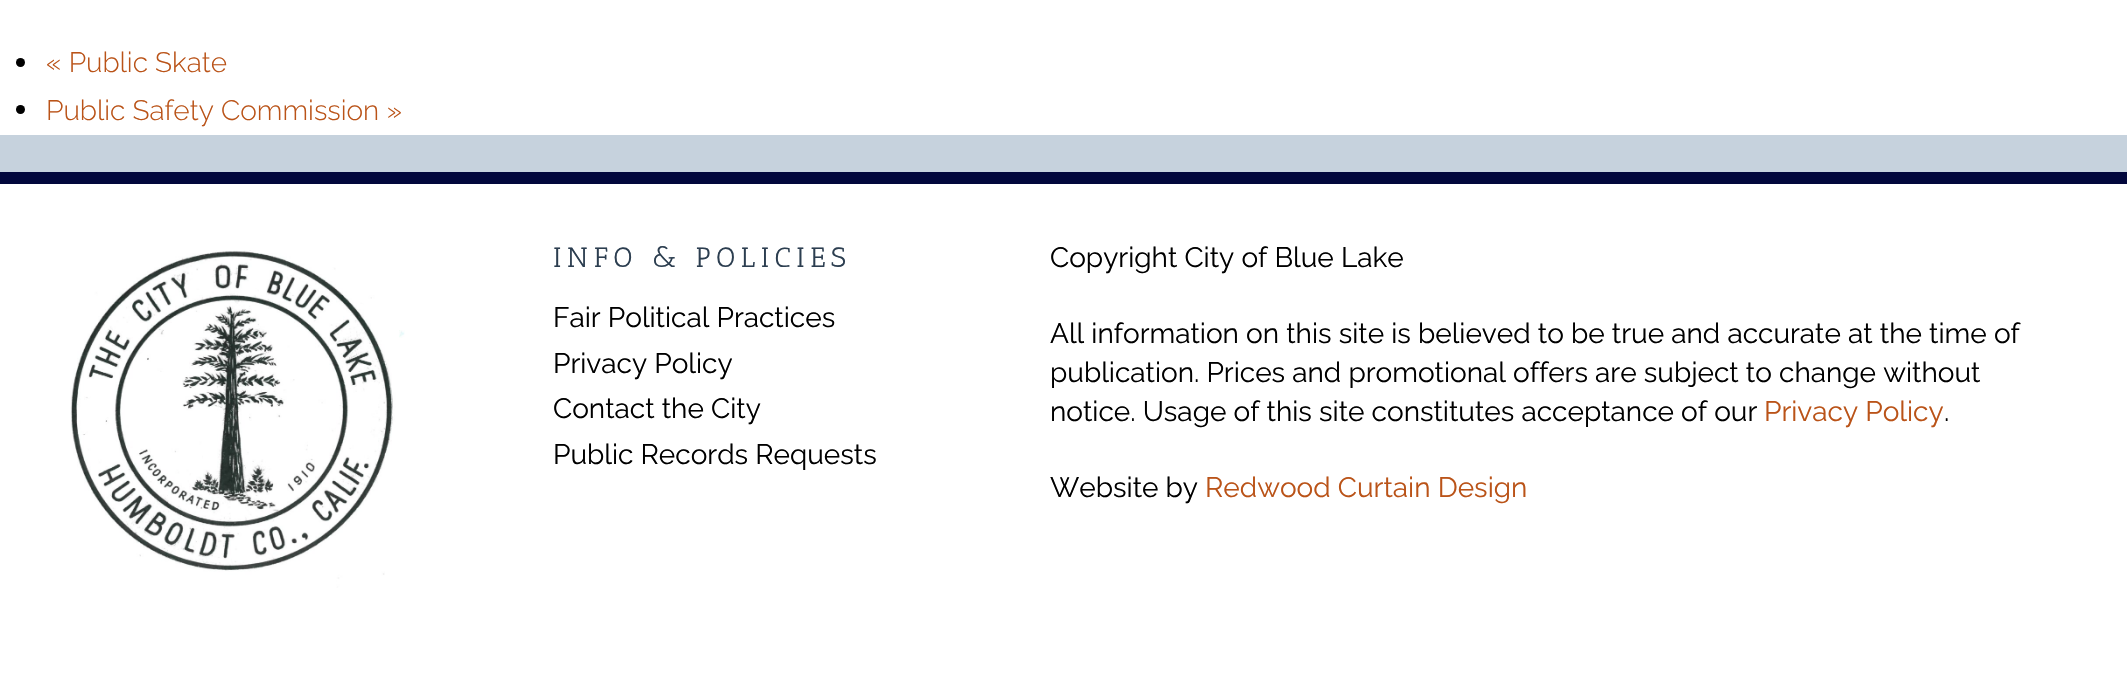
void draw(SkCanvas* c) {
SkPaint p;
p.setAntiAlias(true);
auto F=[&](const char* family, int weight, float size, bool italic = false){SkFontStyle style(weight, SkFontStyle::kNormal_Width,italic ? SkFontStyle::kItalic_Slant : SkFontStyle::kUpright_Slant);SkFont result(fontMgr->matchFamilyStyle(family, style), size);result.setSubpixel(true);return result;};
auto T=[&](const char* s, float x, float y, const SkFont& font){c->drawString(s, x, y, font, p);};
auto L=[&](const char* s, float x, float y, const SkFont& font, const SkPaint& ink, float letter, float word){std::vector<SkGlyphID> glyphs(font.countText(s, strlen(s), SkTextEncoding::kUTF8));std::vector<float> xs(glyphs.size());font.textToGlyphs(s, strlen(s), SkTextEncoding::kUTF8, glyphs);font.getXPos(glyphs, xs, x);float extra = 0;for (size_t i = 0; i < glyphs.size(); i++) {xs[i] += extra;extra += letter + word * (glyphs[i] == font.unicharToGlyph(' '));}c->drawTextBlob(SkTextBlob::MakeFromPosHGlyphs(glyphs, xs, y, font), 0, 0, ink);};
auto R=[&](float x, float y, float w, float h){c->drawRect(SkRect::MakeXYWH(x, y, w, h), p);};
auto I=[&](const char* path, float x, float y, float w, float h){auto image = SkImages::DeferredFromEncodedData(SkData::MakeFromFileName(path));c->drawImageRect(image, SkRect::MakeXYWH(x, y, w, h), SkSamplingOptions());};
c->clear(0xffc6d2dd);
p.setColor(0xffffffff);
R(0,0,2127,135);
p.setColor(0xff000000);
c->drawCircle(20.5,62.5,4.5,p);
auto f1 = F("Raleway",300,28);
p.setColor(0xffba5318);
T("« Public Skate",46,72,f1);
p.setColor(0xff000000);
c->drawCircle(20.5,109.5,4.5,p);
p.setColor(0xffba5318);
T("Public Safety Commission »",46,120,f1);
p.setColor(0xffffffff);
R(0,184,2127,490);
p.setColor(0xff02073c);
R(0,172,2127,12);
I("1.png",70,250,335,338);
auto f2 = F("Antic Slab",400,28);
p.setColor(0xff2c3e50);
L("INFO & POLICIES",553,267,f2,p,5.6,0);
auto f3 = F("Raleway",400,28);
p.setColor(0xff000000);
T("Fair Political Practices",553,327,f3);
T("Privacy Policy",553,373,f3);
T("Contact the City",553,418,f3);
T("Public Records Requests",553,464,f3);
T("Copyright City of Blue Lake",1050,267,f3);
T("All information on this site is believed to be true and accurate at the time of",1050,343,f3);
T("publication. Prices and promotional offers are subject to change without",1050,382,f3);
T("notice. Usage of this site constitutes acceptance of our",1050,421,f3);
p.setColor(0xffba5318);
T("Privacy Policy",1764,421,f3);
p.setColor(0xff000000);
T(".",1944,421,f3);
T("Website by",1050,497,f3);
p.setColor(0xffba5318);
T("Redwood Curtain Design",1205,497,f3);
}
